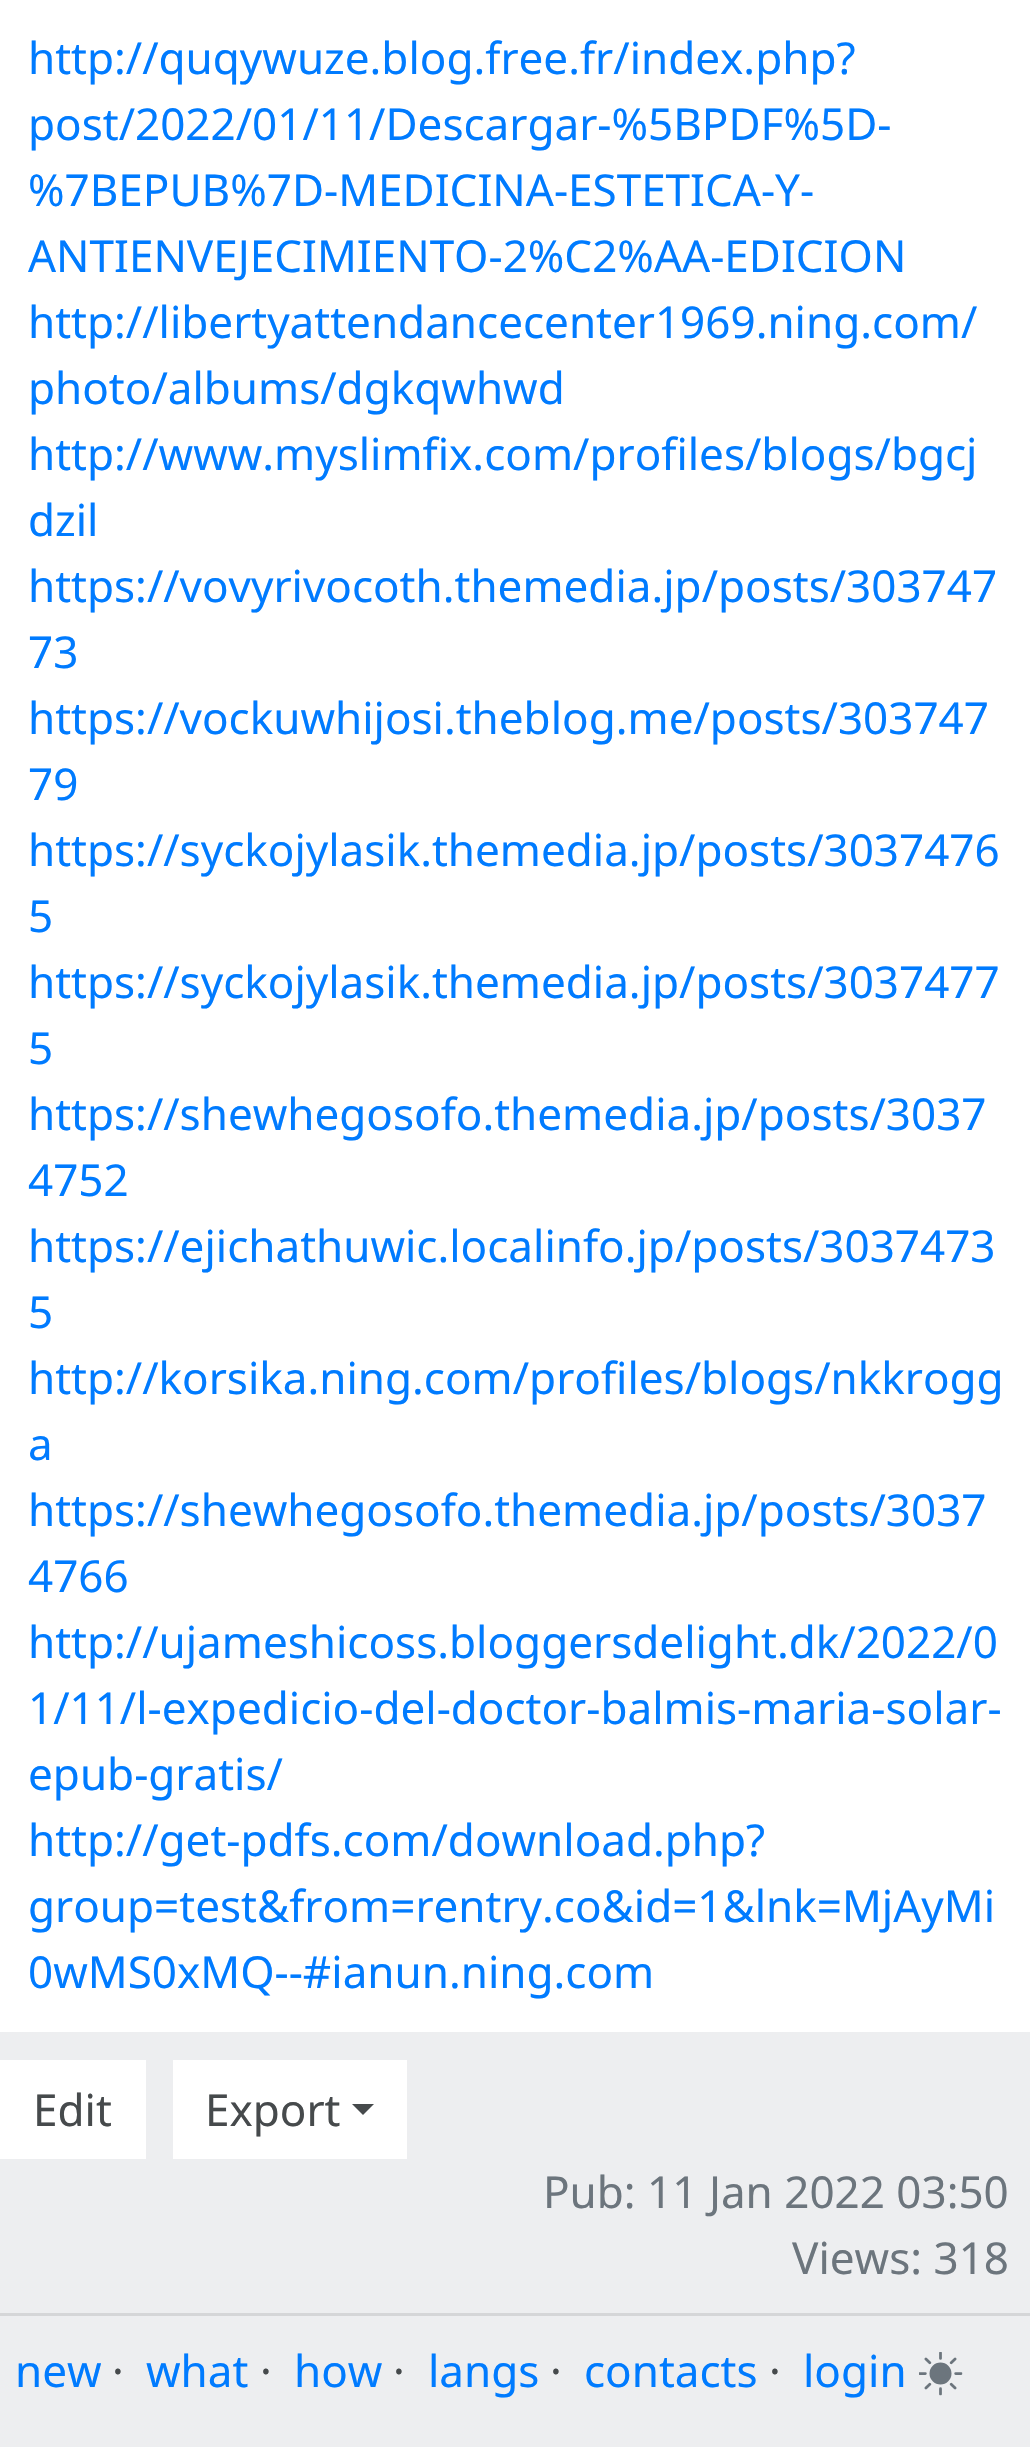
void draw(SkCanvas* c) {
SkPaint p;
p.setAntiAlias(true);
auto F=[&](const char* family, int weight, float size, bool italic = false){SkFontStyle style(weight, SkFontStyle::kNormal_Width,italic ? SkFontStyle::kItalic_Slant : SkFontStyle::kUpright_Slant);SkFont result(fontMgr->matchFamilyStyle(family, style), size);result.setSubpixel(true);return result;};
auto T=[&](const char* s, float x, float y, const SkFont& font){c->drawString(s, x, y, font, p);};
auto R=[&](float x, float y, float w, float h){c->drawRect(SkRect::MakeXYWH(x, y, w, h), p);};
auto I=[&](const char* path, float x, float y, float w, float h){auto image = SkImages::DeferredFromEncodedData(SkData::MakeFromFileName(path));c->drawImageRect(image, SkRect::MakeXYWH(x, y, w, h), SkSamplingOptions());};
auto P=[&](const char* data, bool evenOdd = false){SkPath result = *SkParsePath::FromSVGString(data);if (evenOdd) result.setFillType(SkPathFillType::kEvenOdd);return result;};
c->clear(0xffedeef0);
p.setColor(0xffffffff);
R(0,0,1030,2032);
auto f1 = F("Noto Sans",400,44);
p.setColor(0xff007bff);
T("http://quqywuze.blog.free.fr/index.php?",28,74,f1);
T("post/2022/01/11/Descargar-%5BPDF%5D-",28,140,f1);
T("%7BEPUB%7D-MEDICINA-ESTETICA-Y-",28,206,f1);
T("ANTIENVEJECIMIENTO-2%C2%AA-EDICION",28,272,f1);
T("http://libertyattendancecenter1969.ning.com/",28,338,f1);
T("photo/albums/dgkqwhwd",28,404,f1);
T("http://www.myslimfix.com/profiles/blogs/bgcj",28,470,f1);
T("dzil",28,536,f1);
T("https://vovyrivocoth.themedia.jp/posts/303747",28,602,f1);
T("73",28,668,f1);
T("https://vockuwhijosi.theblog.me/posts/303747",28,734,f1);
T("79",28,800,f1);
T("https://syckojylasik.themedia.jp/posts/3037476",28,866,f1);
T("5",28,932,f1);
T("https://syckojylasik.themedia.jp/posts/3037477",28,998,f1);
T("5",28,1064,f1);
T("https://shewhegosofo.themedia.jp/posts/3037",28,1130,f1);
T("4752",28,1196,f1);
T("https://ejichathuwic.localinfo.jp/posts/3037473",28,1262,f1);
T("5",28,1328,f1);
T("http://korsika.ning.com/profiles/blogs/nkkrogg",28,1394,f1);
T("a",28,1460,f1);
T("https://shewhegosofo.themedia.jp/posts/3037",28,1526,f1);
T("4766",28,1592,f1);
T("http://ujameshicoss.bloggersdelight.dk/2022/0",28,1658,f1);
T("1/11/l-expedicio-del-doctor-balmis-maria-solar-",28,1724,f1);
T("epub-gratis/",28,1790,f1);
T("http://get-pdfs.com/download.php?",28,1856,f1);
T("group=test&from=rentry.co&id=1&lnk=MjAyMi",28,1922,f1);
T("0wMS0xMQ--#ianun.ning.com",28,1988,f1);
p.setColor(0xffffffff);
R(0,2060,146,99);
p.setColor(0xff464a4c);
T("Edit",33,2126,f1);
p.setColor(0xffffffff);
R(173,2060,234,99);
p.setColor(0xff464a4c);
T("Export",205,2126,f1);
c->drawPath(P("M352 2104h22l-11 11z"),p);
p.setColor(0xff6c757d);
T("Pub: 11 Jan 2022 03:50",543,2208,f1);
T("Views: 318",792,2274,f1);
p.setColor(0xffd5d6d8);
R(0,2313,1030,3);
p.setColor(0xff007bff);
T("new",15,2387,f1);
p.setColor(0xff464a4c);
T("·",112,2387,f1);
p.setColor(0xff007bff);
T("what",146,2387,f1);
p.setColor(0xff464a4c);
T("·",260,2387,f1);
p.setColor(0xff007bff);
T("how",294,2387,f1);
p.setColor(0xff464a4c);
T("·",393,2387,f1);
p.setColor(0xff007bff);
T("langs",428,2387,f1);
p.setColor(0xff464a4c);
T("·",550,2387,f1);
p.setColor(0xff007bff);
T("contacts",584,2387,f1);
p.setColor(0xff464a4c);
T("·",769,2387,f1);
p.setColor(0xff007bff);
T("login",803,2387,f1);
I("1.png",919,2352,44,44);
}
